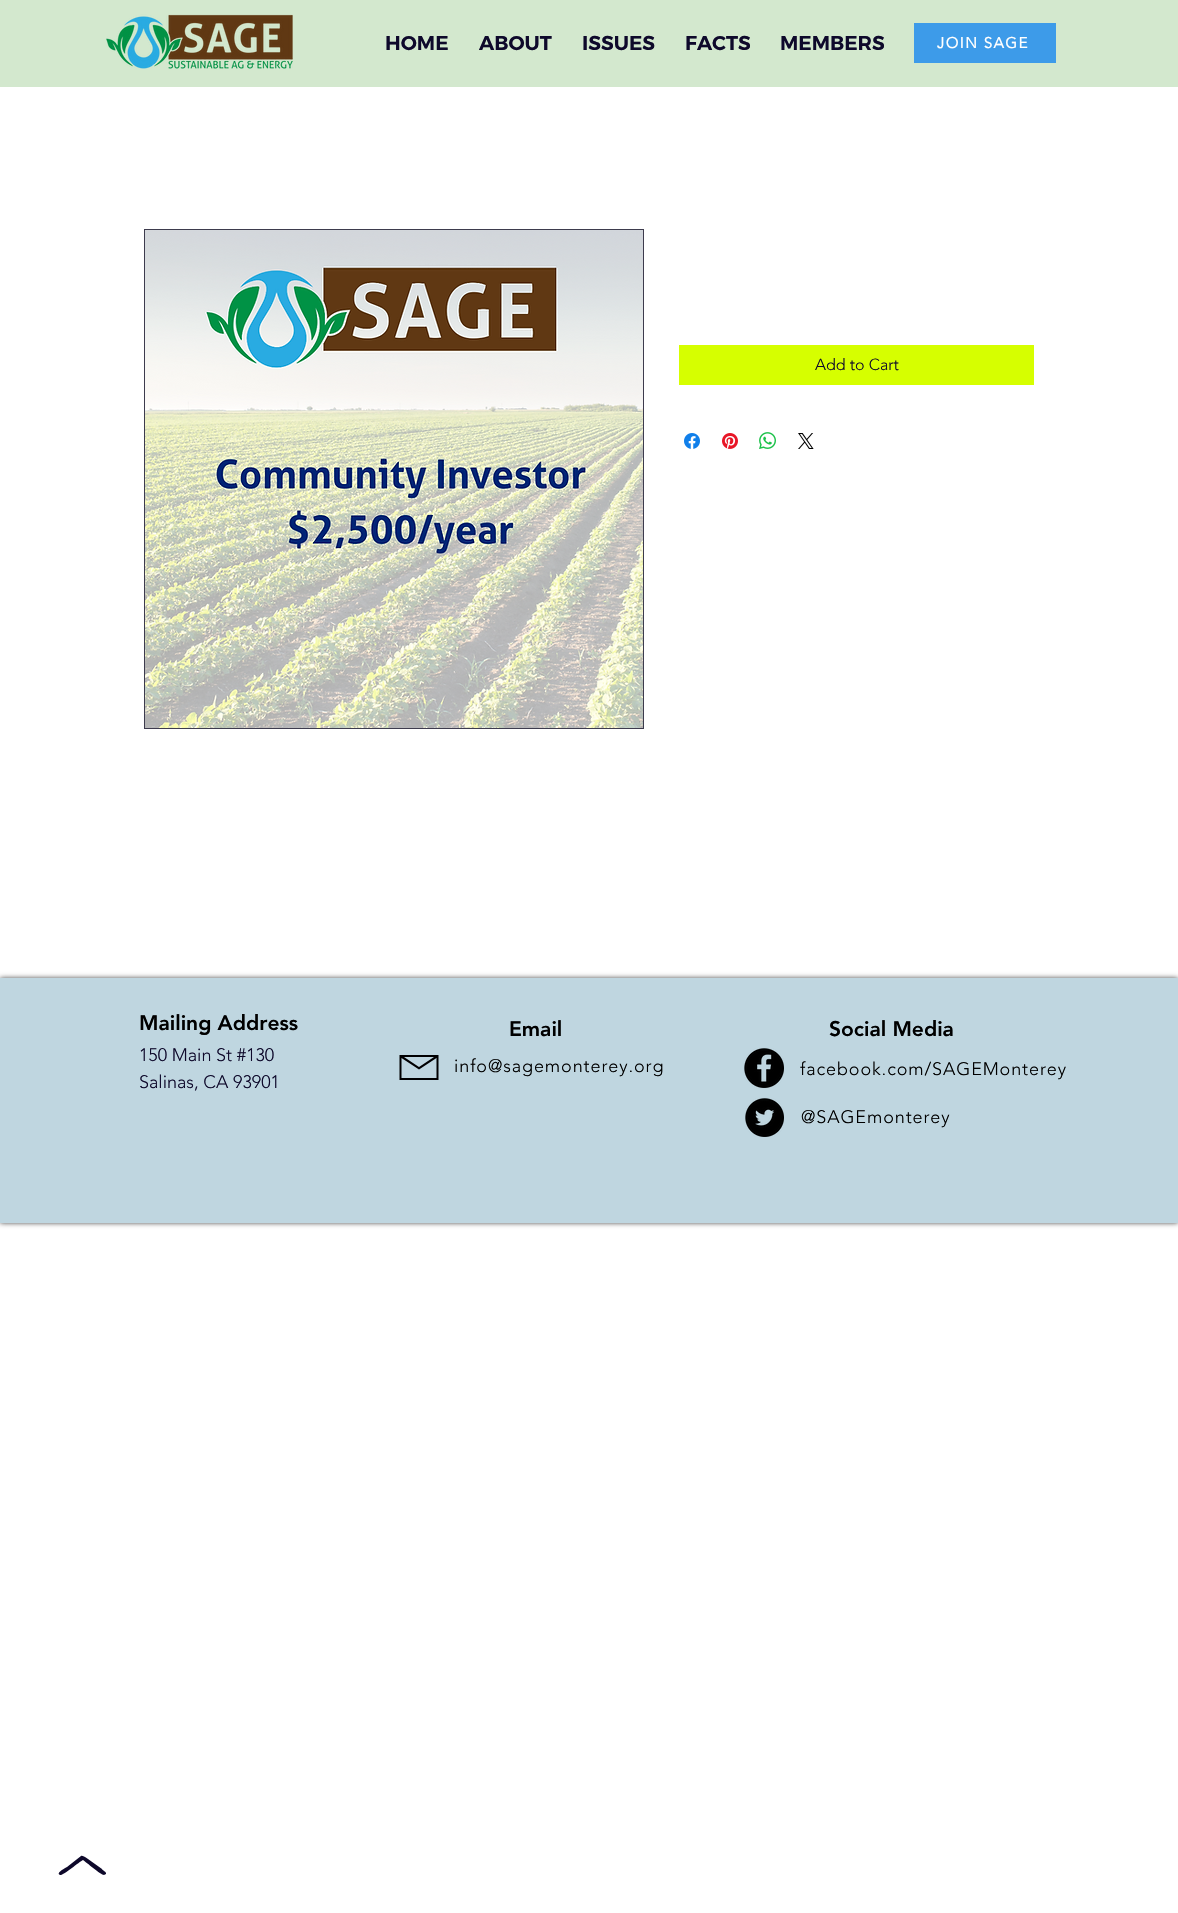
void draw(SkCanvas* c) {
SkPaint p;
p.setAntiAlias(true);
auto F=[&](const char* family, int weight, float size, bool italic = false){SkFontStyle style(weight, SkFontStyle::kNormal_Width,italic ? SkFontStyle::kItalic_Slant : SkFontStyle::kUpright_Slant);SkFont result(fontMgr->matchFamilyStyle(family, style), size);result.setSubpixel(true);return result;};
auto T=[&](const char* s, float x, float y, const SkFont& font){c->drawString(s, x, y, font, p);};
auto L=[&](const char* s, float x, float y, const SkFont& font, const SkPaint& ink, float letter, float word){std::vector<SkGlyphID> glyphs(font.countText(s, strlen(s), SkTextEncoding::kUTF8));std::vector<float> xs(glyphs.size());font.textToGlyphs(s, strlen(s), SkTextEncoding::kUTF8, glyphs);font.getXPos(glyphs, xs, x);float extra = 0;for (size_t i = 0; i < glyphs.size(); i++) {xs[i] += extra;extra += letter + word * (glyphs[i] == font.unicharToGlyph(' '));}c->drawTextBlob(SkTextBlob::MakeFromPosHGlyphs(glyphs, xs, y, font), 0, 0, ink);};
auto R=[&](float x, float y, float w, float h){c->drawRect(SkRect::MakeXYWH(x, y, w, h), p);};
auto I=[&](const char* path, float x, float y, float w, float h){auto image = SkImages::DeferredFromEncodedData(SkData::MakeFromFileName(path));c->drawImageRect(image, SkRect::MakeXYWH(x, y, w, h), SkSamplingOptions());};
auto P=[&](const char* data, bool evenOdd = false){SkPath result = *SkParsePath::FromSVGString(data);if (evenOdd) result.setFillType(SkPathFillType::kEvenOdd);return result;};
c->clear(0xffffffff);
p.setColor(0xffd3e8ce);
R(0,0,1178,87);
I("1.png",106,14,187,55);
auto f1 = F("Montserrat",600,20);
p.setColor(0xff0e092b);
T("HOME",385,50,f1);
T("ABOUT",479,50,f1);
T("ISSUES",582,50,f1);
T("FACTS",685,50,f1);
T("MEMBERS",780,50,f1);
p.setColor(0xff3d9be9);
R(914,23,142,40);
auto f2 = F("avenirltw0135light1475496",700,15);
p.setColor(0xffffffff);
L("JOIN SAGE",937,48,f2,p,1.5,0);
p.setStroke(true);
p.setStrokeWidth(1);
p.setColor(0xff3d3b4d);
c->drawRect(SkRect::MakeXYWH(144.5,229.5,499,499),p);
I("2.png",145,230,498,498);
p.setStroke(false);
p.setColor(0xffd6ff00);
R(679,345,355,40);
auto f3 = F("avenirltw0135light1475496",300,16);
p.setColor(0xff0e092b);
T("Add to Cart",815,370,f3);
I("3.png",684,433,16,16);
I("4.png",722,433,16,16);
I("5.png",759,432,17,17);
I("6.png",798,433,16,16);
p.setColor(0xb3000000);
p.setMaskFilter(SkMaskFilter::MakeBlur(kNormal_SkBlurStyle, 2.5));
c->drawRect(SkRect::MakeXYWH(0,978,1178,245),p);
p.setMaskFilter(nullptr);
p.setColor(0xffbfd6e0);
R(0,978,1178,245);
auto f4 = F("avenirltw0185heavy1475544",900,21);
p.setColor(0xff000000);
T("Mailing Address",139,1030,f4);
T("Email",509,1036,f4);
T("Social Media",829,1036,f4);
auto f5 = F("avenirltw0135light1475496",300,18);
p.setColor(0xff0e092b);
T("150 Main St #130",139,1061,f5);
T("Salinas, CA 93901",139,1088,f5);
p.setColor(0xff000001);
c->drawPath(P("M399.5 1055v25h39v-25zm34.5 2l-15 10l-15-10zm-32.5 21v-20l17.5 11.5l17.5-11.5v20z"),p);
p.setColor(0xff000000);
L("info@sagemonterey.org",454,1072,f5,p,.9,0);
I("7.png",744,1048,40,40);
L("facebook.com/SAGEMonterey",800,1075,f5,p,.9,0);
I("8.png",745,1098,39,39);
L("@SAGEmonterey",801,1123,f5,p,.9,0);
p.setColor(0xff0e092b);
c->drawPath(P("M104 1875c-3 0-18-13-21-15c-4 2-20 16-23 15c-4-2 2-5 7-8l14-11c2-1 5 2 7 3l14 10c0 1 5 3 4 5z"),p);
}
